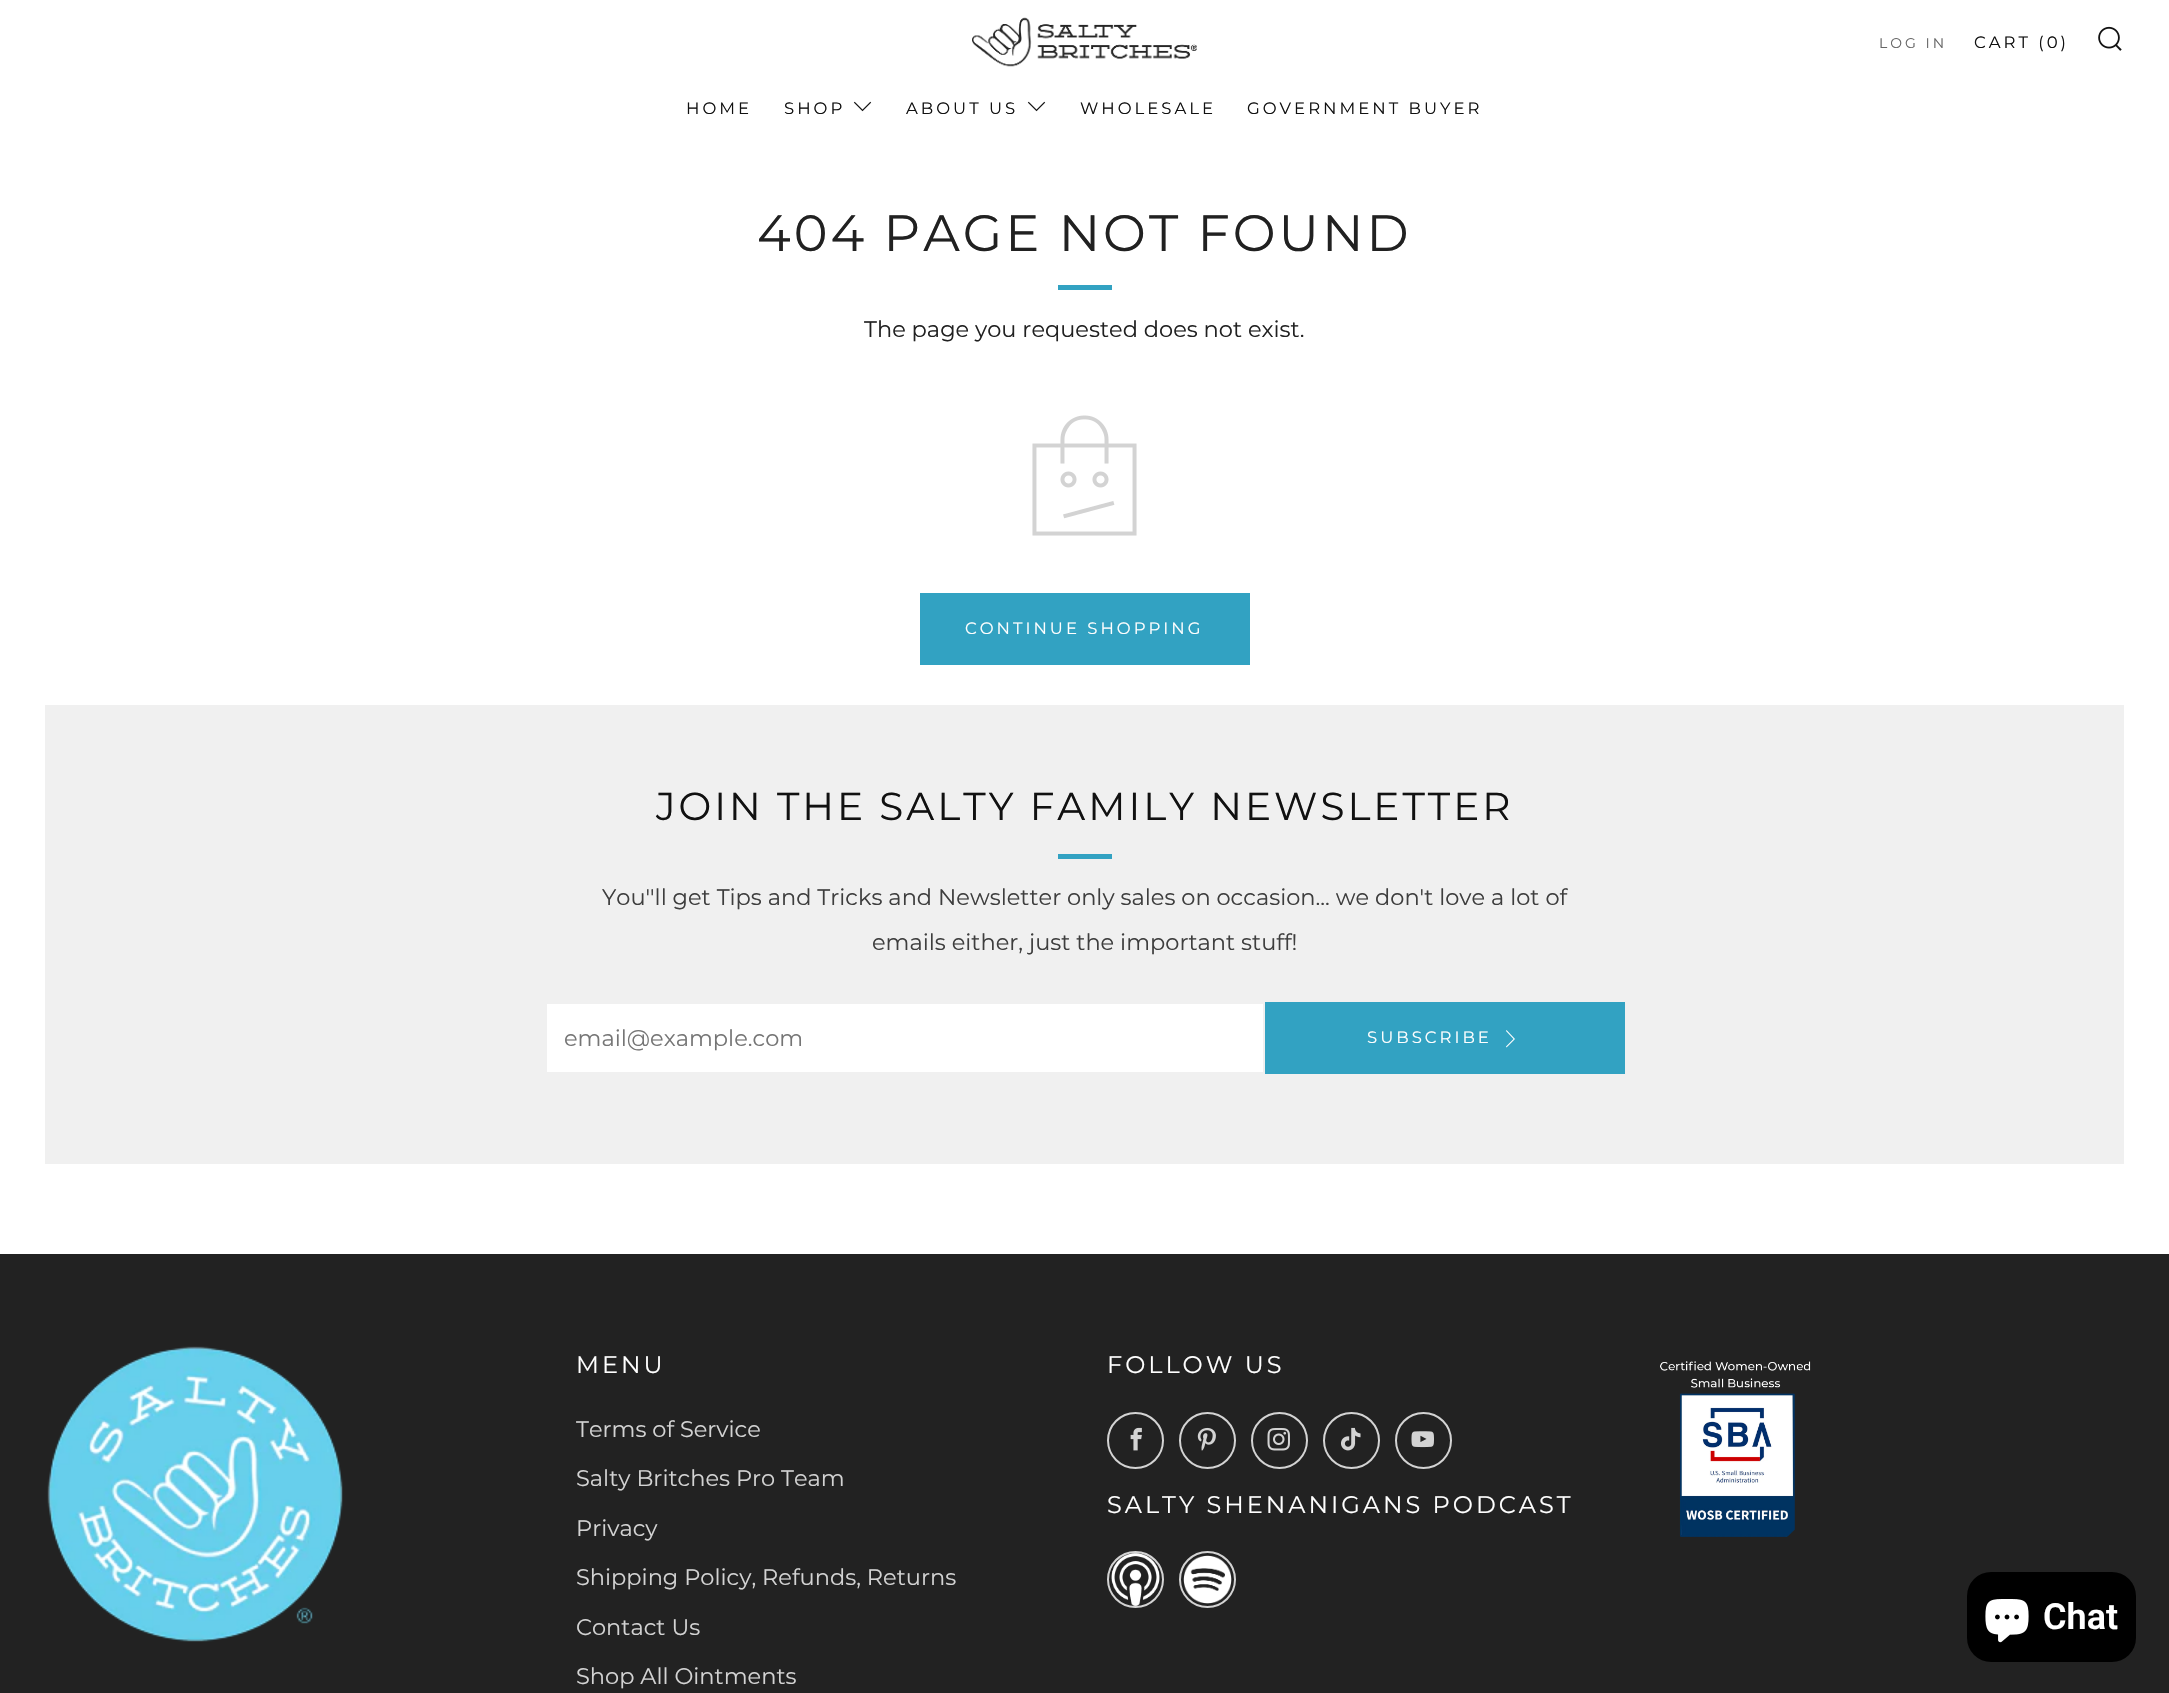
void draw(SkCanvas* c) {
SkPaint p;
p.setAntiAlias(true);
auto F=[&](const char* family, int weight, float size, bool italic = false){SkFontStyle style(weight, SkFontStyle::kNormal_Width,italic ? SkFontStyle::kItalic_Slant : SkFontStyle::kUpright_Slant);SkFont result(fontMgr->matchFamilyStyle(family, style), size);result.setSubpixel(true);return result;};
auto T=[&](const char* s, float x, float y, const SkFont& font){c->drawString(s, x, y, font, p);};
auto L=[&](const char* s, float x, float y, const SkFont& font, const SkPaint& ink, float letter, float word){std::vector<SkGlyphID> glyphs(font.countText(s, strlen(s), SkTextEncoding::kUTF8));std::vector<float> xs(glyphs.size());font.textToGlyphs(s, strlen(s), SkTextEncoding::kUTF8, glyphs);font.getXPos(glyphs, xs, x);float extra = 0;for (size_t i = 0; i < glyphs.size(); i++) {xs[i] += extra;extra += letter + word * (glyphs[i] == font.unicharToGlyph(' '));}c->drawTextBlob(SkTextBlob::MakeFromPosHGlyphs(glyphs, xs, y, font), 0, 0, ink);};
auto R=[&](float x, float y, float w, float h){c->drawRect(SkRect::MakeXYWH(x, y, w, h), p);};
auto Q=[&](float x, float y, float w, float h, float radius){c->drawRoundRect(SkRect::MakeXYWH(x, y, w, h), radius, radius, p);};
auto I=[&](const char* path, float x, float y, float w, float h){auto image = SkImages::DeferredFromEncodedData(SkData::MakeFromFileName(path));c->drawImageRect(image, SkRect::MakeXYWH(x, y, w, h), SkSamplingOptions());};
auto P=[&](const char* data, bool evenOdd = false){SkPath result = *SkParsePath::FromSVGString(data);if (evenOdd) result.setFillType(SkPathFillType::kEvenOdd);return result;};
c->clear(0xffffffff);
I("1.png",972,17,225,50);
auto f1 = F("Montserrat",100,14);
p.setColor(0xff666666);
L("LOG IN",1879,48,f1,p,3,0);
auto f2 = F("Montserrat",100,16.5);
p.setColor(0xff111111);
L("CART (0)",1974,48,f2,p,3,0);
I("2.png",2098,26,24,25);
L("HOME",686,114,f2,p,3,0);
L("SHOP",784,114,f2,p,3,0);
I("3.png",853,101,19,11);
L("ABOUT US",906,114,f2,p,3,0);
I("3.png",1027,101,19,11);
L("WHOLESALE",1080,114,f2,p,3,0);
L("GOVERNMENT BUYER",1247,114,f2,p,3,0);
auto f3 = F("Montserrat",100,51);
p.setColor(0xff212121);
L("404 PAGE NOT FOUND",757,251,f3,p,3,0);
p.setColor(0xff32a2c2);
R(1058,285,54,5);
auto f4 = F("Montserrat",100,22.5);
p.setColor(0xff212121);
T("The page you requested does not exist.",864,337,f4);
I("4.png",1032,415,105,121);
p.setColor(0xff32a2c2);
R(920,593,330,72);
p.setColor(0xffffffff);
L("CONTINUE SHOPPING",965,634,f2,p,3,0);
p.setColor(0xfff0f0f0);
R(45,705,2079,459);
auto f5 = F("Montserrat",100,39);
p.setColor(0xff111111);
L("JOIN THE SALTY FAMILY NEWSLETTER",656,820,f5,p,3,0);
p.setColor(0xff32a2c2);
R(1058,854,54,5);
p.setColor(0xff3e3e3e);
T("You''ll get Tips and Tricks and Newsletter only sales on occasion... we don't love a lot of",602,905,f4);
T("emails either, just the important stuff!",872,950,f4);
p.setColor(0xffffffff);
R(547,1004,716,68);
p.setColor(0xff757575);
T("email@example.com",564,1046,f4);
p.setColor(0xff32a2c2);
R(1265,1002,360,72);
p.setColor(0xffffffff);
L("SUBSCRIBE",1367,1043,f2,p,3,0);
c->drawPath(P("M1506 1046.5l.5 1l8.5-8.5l-8.5-9l-.5 1l7.5 8z"),p);
p.setColor(0xff222222);
R(0,1254,2169,439);
I("5.png",47,1346,296,296);
auto f6 = F("Montserrat",100,24);
p.setColor(0xffffffff);
L("MENU",576,1373,f6,p,3,0);
p.setColor(0xffd3d3d3);
T("Terms of Service",576,1437,f4);
T("Salty Britches Pro Team",576,1486,f4);
T("Privacy",576,1536,f4);
T("Shipping Policy, Refunds, Returns",576,1585,f4);
T("Contact Us",576,1635,f4);
T("Shop All Ointments",576,1684,f4);
p.setColor(0xffffffff);
L("FOLLOW US",1107,1373,f6,p,3,0);
p.setStroke(true);
p.setStrokeWidth(2);
p.setColor(0xffd3d3d3);
c->drawCircle(1135.5,1440.5,27.5,p);
I("6.png",1130,1427,12,24);
c->drawCircle(1207.5,1440.5,27.5,p);
I("7.png",1197,1427,19,24);
c->drawCircle(1279.5,1440.5,27.5,p);
I("8.png",1267,1428,23,23);
c->drawCircle(1351.5,1440.5,27.5,p);
I("9.png",1341,1427,20,24);
c->drawCircle(1423.5,1440.5,27.5,p);
I("10.png",1411,1431,23,17);
p.setStroke(false);
p.setColor(0xffffffff);
L("SALTY SHENANIGANS PODCAST",1107,1513,f6,p,3,0);
p.setStroke(true);
p.setColor(0xffd3d3d3);
c->drawCircle(1135.5,1579.5,27.5,p);
I("11.png",1111,1553,49,53);
c->drawCircle(1207.5,1579.5,27.5,p);
I("12.png",1183,1555,49,49);
I("13.png",1660,1361,151,176);
p.setStroke(false);
p.setColor(0xff000000);
Q(1967,1572,169,90,24);
I("14.png",1985,1599,44,44);
auto f7 = F("Roboto",600,36);
p.setColor(0xffffffff);
T("Chat",2043,1629,f7);
}
